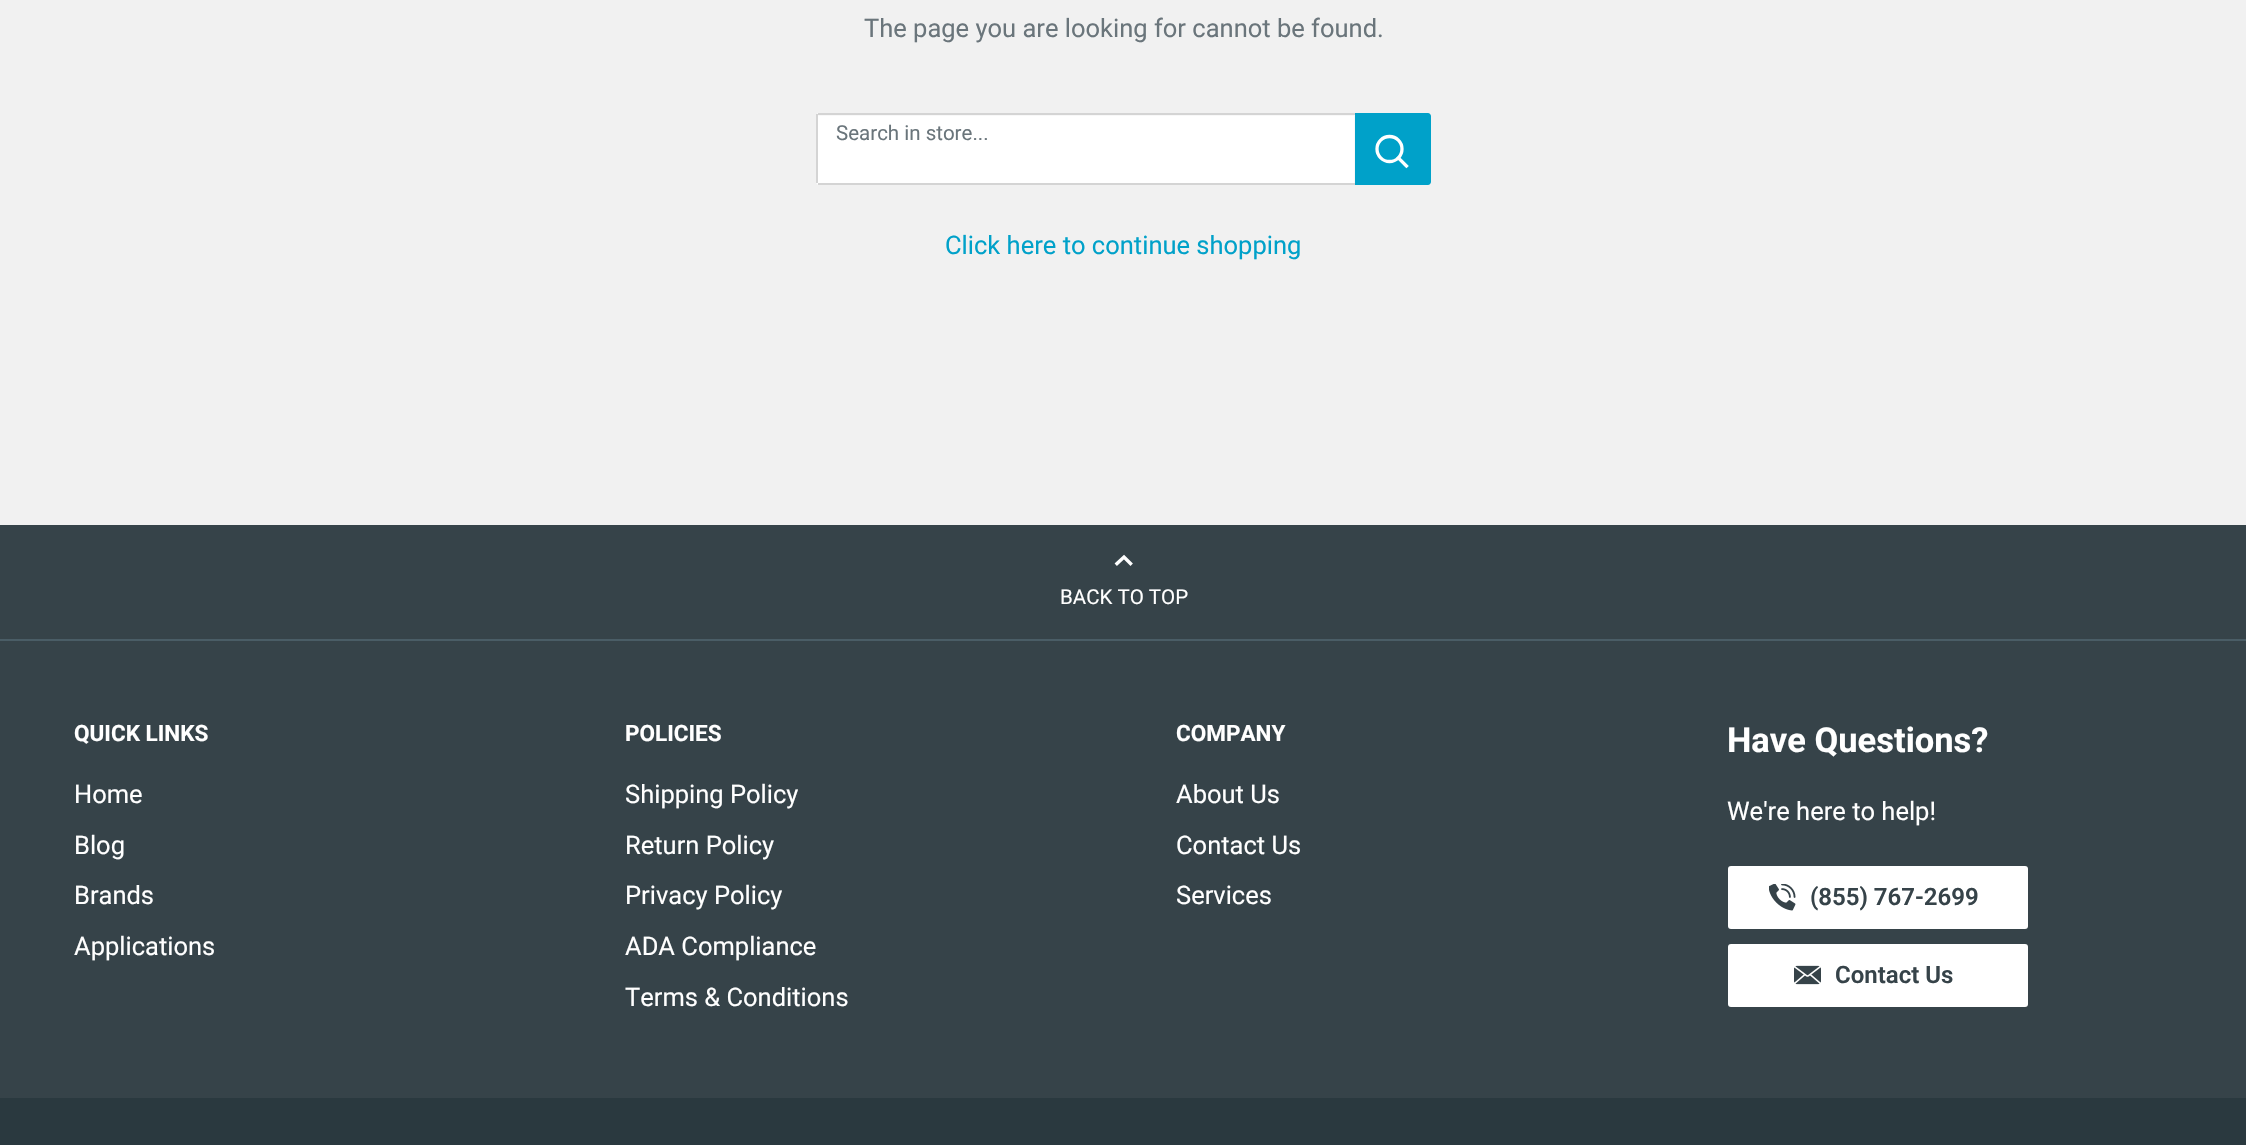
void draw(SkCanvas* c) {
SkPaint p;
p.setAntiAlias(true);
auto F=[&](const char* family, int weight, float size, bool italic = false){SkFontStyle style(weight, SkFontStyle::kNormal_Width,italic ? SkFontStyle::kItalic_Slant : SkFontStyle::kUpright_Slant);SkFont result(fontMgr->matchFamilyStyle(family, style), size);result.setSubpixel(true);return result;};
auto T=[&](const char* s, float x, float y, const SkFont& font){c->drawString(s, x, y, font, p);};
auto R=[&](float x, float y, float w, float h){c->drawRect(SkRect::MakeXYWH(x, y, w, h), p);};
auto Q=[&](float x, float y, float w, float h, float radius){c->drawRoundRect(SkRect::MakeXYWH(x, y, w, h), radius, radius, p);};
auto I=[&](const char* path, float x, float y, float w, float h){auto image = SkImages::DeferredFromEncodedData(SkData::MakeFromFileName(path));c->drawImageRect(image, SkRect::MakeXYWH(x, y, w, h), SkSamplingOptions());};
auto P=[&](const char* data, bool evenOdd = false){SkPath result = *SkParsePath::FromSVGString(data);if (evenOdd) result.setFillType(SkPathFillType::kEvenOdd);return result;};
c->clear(0xfff1f1f1);
auto f1 = F("Roboto",400,25.5);
p.setColor(0xff6a757b);
T("The page you are looking for cannot be found.",864,37,f1);
p.setColor(0xffffffff);
c->drawPath(P("M819 113h536v72h-536c-1.5 0-3-1.5-3-3v-66c0-1.5 1.5-3 3-3z"),p);
p.setColor(0xfff8f8f8);
c->drawPath(P("M819 116h535v67h1v-69h-535c-2 0-2 2-2 3c0-1 0-1 1-1z"),p);
p.setColor(0xffd4d4d4);
R(818,113,537,2);
R(818,183,537,2);
R(816,114,2,69);
auto f2 = F("Roboto",400,20.5);
p.setColor(0xff6a757b);
T("Search in store...",836,140,f2);
p.setColor(0xff00a1c9);
c->drawPath(P("M1355 113h73c1.5 0 3 1.5 3 3v66c0 1.5-1.5 3-3 3h-73z"),p);
p.setStroke(true);
p.setStrokeWidth(3.3);
p.setStrokeCap(SkPaint::kSquare_Cap);
p.setColor(0xffffffff);
c->drawPath(P("M1406.5 166l-8-8"),p);
p.setStrokeCap(SkPaint::kButt_Cap);
c->drawCircle(1389.5,149,12.5,p);
p.setStroke(false);
p.setColor(0xff00a1c9);
T("Click here to continue shopping",945,254,f1);
p.setColor(0xff364349);
R(0,525,2246,573);
p.setColor(0xff4a5d66);
R(0,639,2246,2);
p.setStroke(true);
p.setStrokeWidth(3.4);
p.setStrokeCap(SkPaint::kSquare_Cap);
p.setColor(0xffffffff);
c->drawPath(P("M1117 563.5l7-6.5l6.5 6.5"),p);
p.setStroke(false);
T("BACK TO TOP",1060,604,f2);
auto f3 = F("Roboto",700,22.5);
T("QUICK LINKS",74,741,f3);
T("Home",74,803,f1);
T("Blog",74,854,f1);
T("Brands",74,904,f1);
T("Applications",74,955,f1);
T("POLICIES",625,741,f3);
T("Shipping Policy",625,803,f1);
T("Return Policy",625,854,f1);
T("Privacy Policy",625,904,f1);
T("ADA Compliance",625,955,f1);
T("Terms & Conditions",625,1006,f1);
T("COMPANY",1176,741,f3);
T("About Us",1176,803,f1);
T("Contact Us",1176,854,f1);
T("Services",1176,904,f1);
auto f4 = F("Roboto",700,34.5);
T("Have Questions?",1727,752,f4);
T("We're here to help!",1727,820,f1);
Q(1728,866,300,63,3);
I("1.png",1769,884,27,27);
auto f5 = F("Roboto",600,24);
p.setColor(0xff364349);
T("(855) 767-2699",1810,905,f5);
p.setColor(0xffffffff);
Q(1728,944,300,63,3);
I("2.png",1794,965,27,20);
p.setColor(0xff364349);
T("Contact Us",1835,983,f5);
p.setColor(0xff2a393f);
R(0,1098,2246,47);
}
